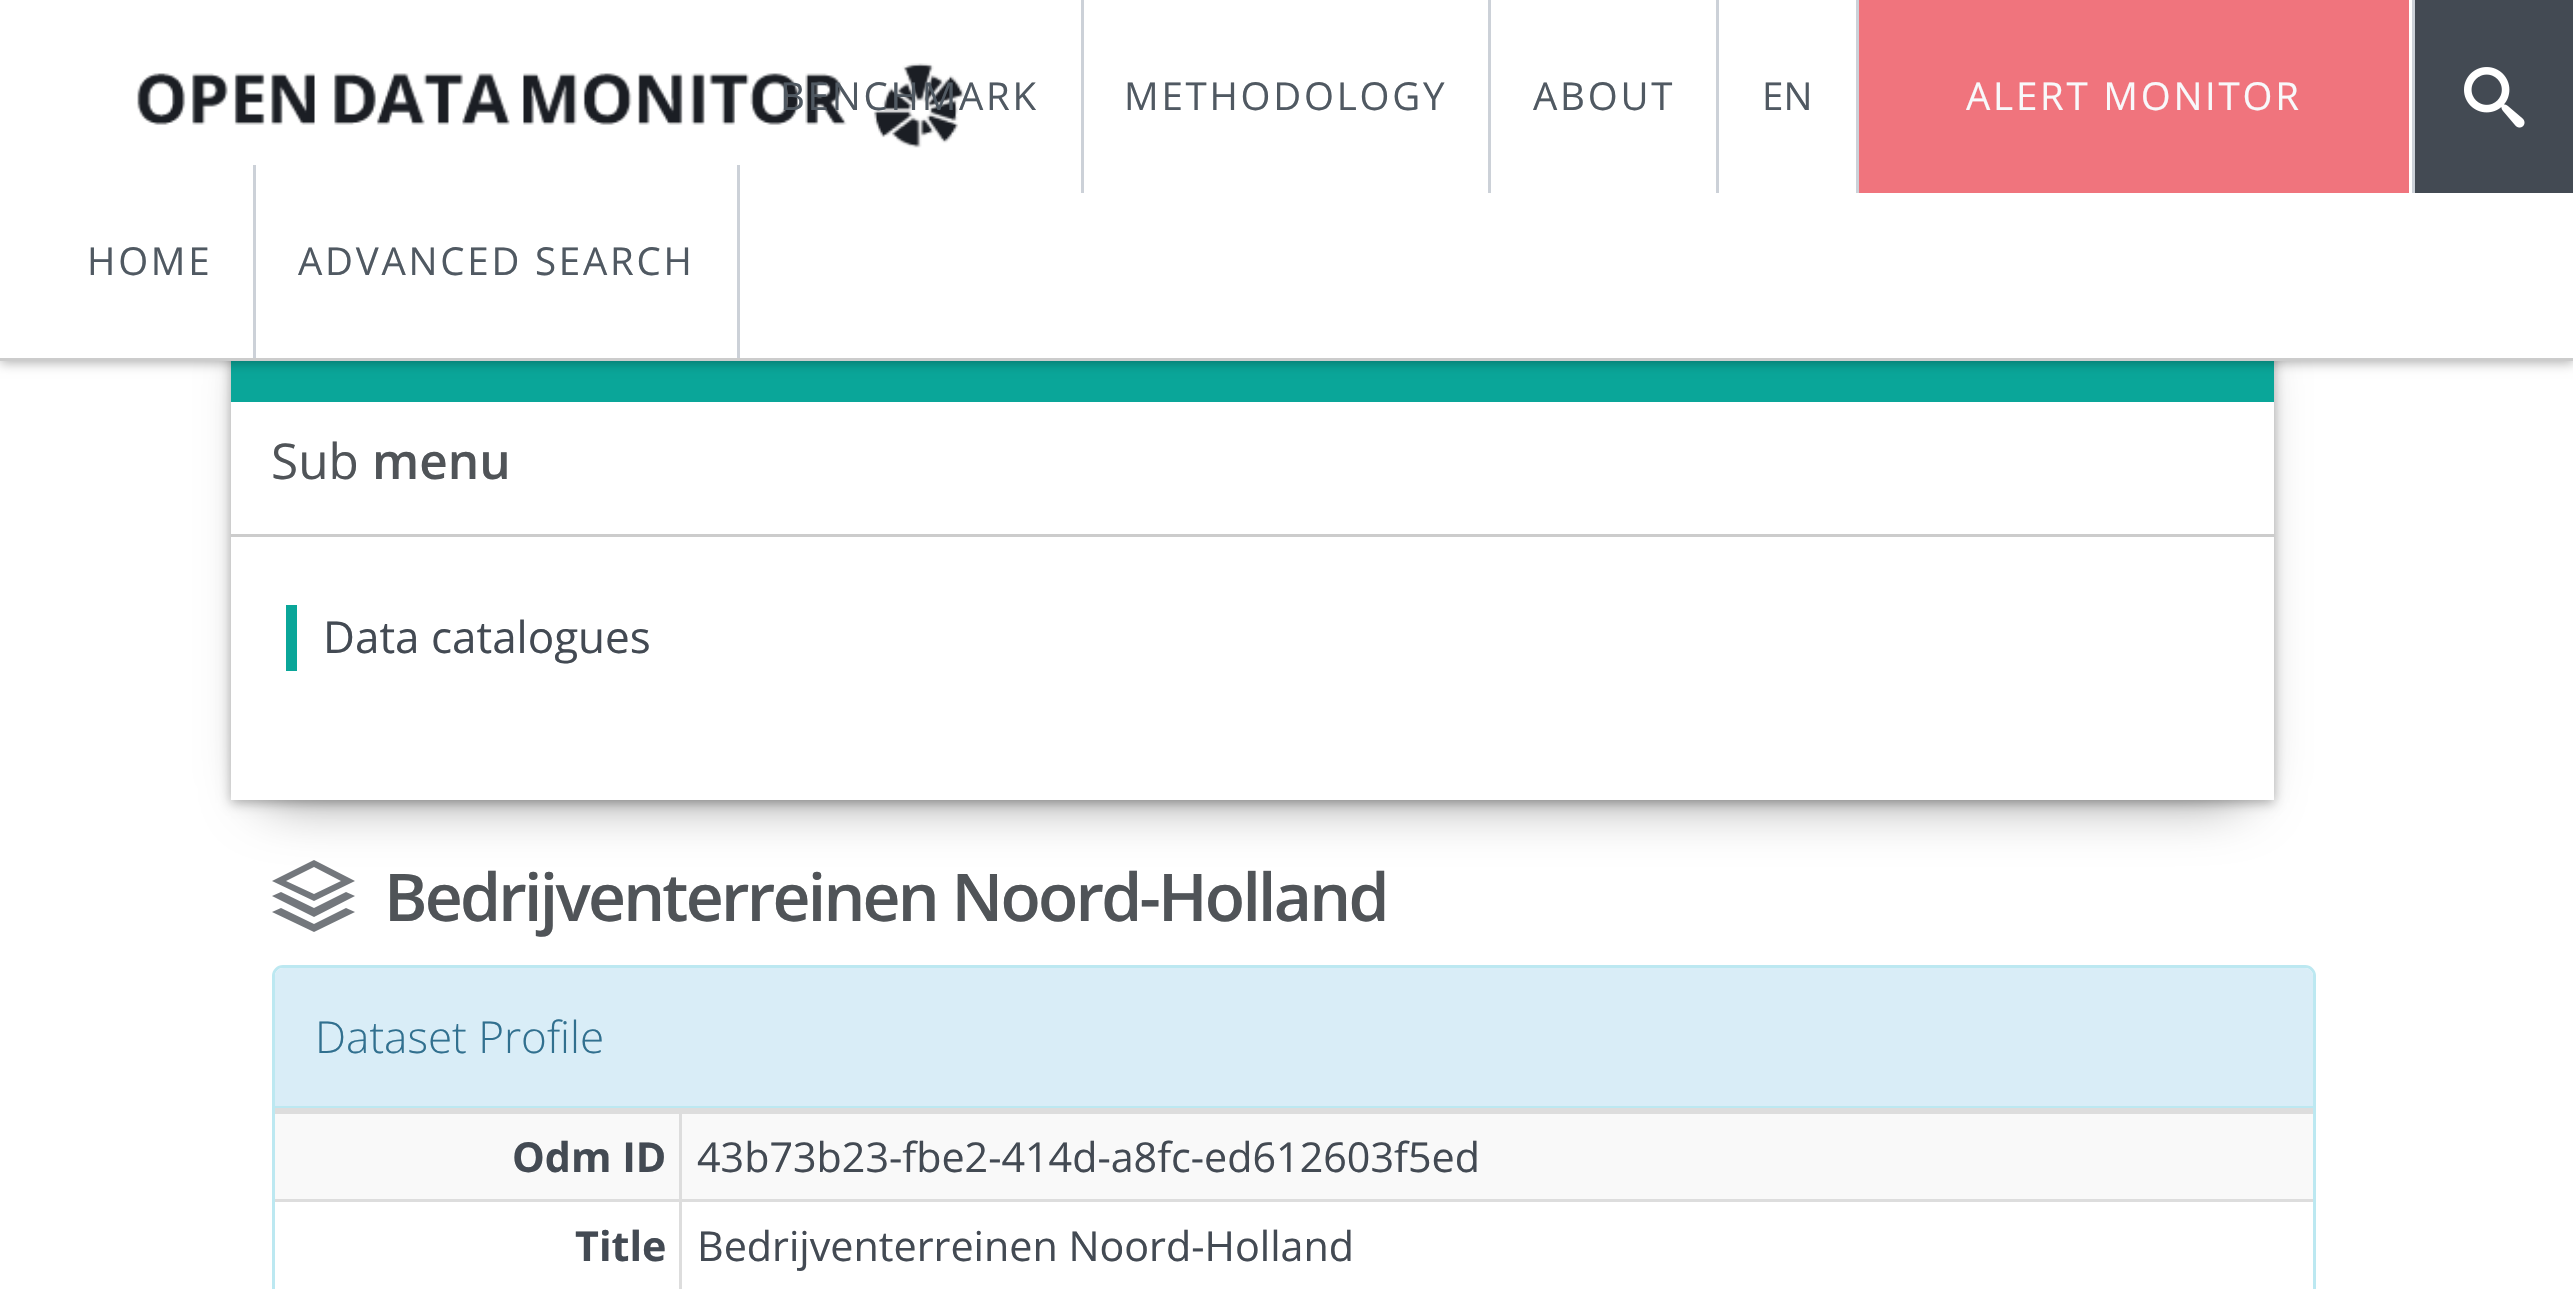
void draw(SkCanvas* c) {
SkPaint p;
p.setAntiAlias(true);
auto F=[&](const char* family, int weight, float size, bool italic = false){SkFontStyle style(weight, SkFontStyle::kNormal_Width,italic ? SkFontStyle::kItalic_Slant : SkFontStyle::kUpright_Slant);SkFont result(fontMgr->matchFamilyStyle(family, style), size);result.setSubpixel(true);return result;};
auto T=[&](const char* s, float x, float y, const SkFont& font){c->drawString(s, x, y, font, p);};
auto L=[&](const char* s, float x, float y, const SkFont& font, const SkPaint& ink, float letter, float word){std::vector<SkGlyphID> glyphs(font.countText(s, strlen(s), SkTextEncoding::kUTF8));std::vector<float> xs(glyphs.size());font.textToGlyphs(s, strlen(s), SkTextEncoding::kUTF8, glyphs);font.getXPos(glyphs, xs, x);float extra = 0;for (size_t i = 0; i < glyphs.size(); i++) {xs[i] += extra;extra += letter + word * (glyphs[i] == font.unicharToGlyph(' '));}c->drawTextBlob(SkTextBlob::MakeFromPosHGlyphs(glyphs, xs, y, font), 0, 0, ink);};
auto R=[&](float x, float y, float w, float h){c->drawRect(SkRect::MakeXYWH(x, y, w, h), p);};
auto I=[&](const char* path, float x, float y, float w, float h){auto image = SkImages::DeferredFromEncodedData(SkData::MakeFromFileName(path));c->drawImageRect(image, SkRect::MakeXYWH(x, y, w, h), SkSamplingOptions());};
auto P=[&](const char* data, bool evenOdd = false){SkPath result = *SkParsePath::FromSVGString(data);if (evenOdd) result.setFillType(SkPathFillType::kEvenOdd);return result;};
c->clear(0xffffffff);
p.setColor(0x4d000000);
p.setMaskFilter(SkMaskFilter::MakeBlur(kNormal_SkBlurStyle, 5.5));
c->drawRect(SkRect::MakeXYWH(231,-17,2043,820),p);
p.setMaskFilter(nullptr);
p.setColor(0x66000000);
p.setMaskFilter(SkMaskFilter::MakeBlur(kNormal_SkBlurStyle, 27.5));
c->drawRoundRect(SkRect::MakeXYWH(259,344,1988,456),28,28,p);
p.setMaskFilter(nullptr);
p.setColor(0xff0aa699);
R(231,361,2043,41);
p.setColor(0x4d000000);
p.setMaskFilter(SkMaskFilter::MakeBlur(kNormal_SkBlurStyle, 5.5));
c->drawRect(SkRect::MakeXYWH(0,3,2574,360),p);
p.setMaskFilter(nullptr);
p.setColor(0xffffffff);
R(0,0,2573,358);
p.setColor(0xffcccccc);
R(0,358,2573,3);
I("1.png",137,63,828,85);
p.setColor(0xff434a53);
R(2415,0,158,193);
p.setColor(0xffccd1d8);
R(2412,0,3,193);
I("2.png",2464,67,61,61);
R(1081,0,3,193);
auto f1 = F("Open Sans",400,38.5);
p.setColor(0xff505962);
L("BENCHMARK",780,110,f1,p,2.75,0);
p.setColor(0xffccd1d8);
R(1488,0,3,193);
p.setColor(0xff505962);
L("METHODOLOGY",1124,110,f1,p,2.75,0);
p.setColor(0xffccd1d8);
R(1716,0,3,193);
p.setColor(0xff505962);
L("ABOUT",1533,110,f1,p,2.75,0);
p.setColor(0xffccd1d8);
R(1856,0,3,193);
p.setColor(0xff505962);
T("EN",1762,110,f1);
p.setColor(0xfff0747d);
R(1859,0,550,193);
p.setColor(0xfff8f9fb);
L("ALERT MONITOR",1966,110,f1,p,2.75,0);
p.setColor(0xffccd1d8);
R(253,165,3,193);
p.setColor(0xff505962);
L("HOME",87,275,f1,p,2.75,0);
p.setColor(0xffccd1d8);
R(737,165,3,193);
p.setColor(0xff505962);
L("ADVANCED SEARCH",298,275,f1,p,2.75,0);
p.setColor(0xffffffff);
R(231,402,2043,398);
p.setColor(0xffcccccc);
R(231,534,2043,3);
auto f2 = F("Open Sans",400,49.5);
p.setColor(0xff505458);
T("Sub",271,479,f2);
auto f3 = F("Open Sans",600,49.5);
T("menu",372,479,f3);
p.setColor(0xff0aa699);
R(286,605,11,66);
auto f4 = F("Open Sans",400,44);
p.setColor(0xff434a53);
T("Data catalogues",323,653,f4);
p.setColor(0xff73777c);
c->drawPath(P("M355 881l-41-21l-42 21l42 20zm-41-14l27 14l-27 13l-28-13zm32 25l9 4l-41 21l-42-21l9-4l33 16zm0 16l9 4l-41 20l-42-20l9-4l33 16z"),p);
auto f5 = F("Open Sans",600,66);
p.setColor(0xff505458);
L("Bedrijventerreinen Noord-Holland",384,921,f5,p,-2.75,0);
p.setStroke(true);
p.setStrokeWidth(3);
p.setColor(0xffbce8f1);
c->drawRoundRect(SkRect::MakeXYWH(273.5,966.5,2041,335),9.5,9.5,p);
p.setStroke(false);
p.setColor(0xffd9edf7);
c->drawPath(P("M283 968h2022c4.5 0 8 3.5 8 8v132h-2038v-132c0-4.5 3.5-8 8-8z"),p);
p.setColor(0xffbce8f1);
R(275,1106,2038,2);
auto f6 = F("Open Sans",300,44);
p.setColor(0xff31708f);
T("Dataset Profile",315,1053,f6);
p.setColor(0xffdddddd);
R(275,1108,2038,3);
p.setColor(0xfff9f9f9);
R(275,1114,2038,85);
p.setColor(0xffdddddd);
R(679,1111,1634,3);
R(679,1199,1634,3);
R(679,1199,3,90);
R(275,1199,407,3);
R(679,1111,3,91);
R(275,1111,407,3);
auto f7 = F("Open Sans",700,41.25);
p.setColor(0xff434a53);
T("Odm ID",512,1172,f7);
auto f8 = F("Open Sans",400,41.25);
T("43b73b23-fbe2-414d-a8fc-ed612603f5ed",697,1172,f8);
T("Title",575,1261,f7);
T("Bedrijventerreinen Noord-Holland",697,1261,f8);
}
